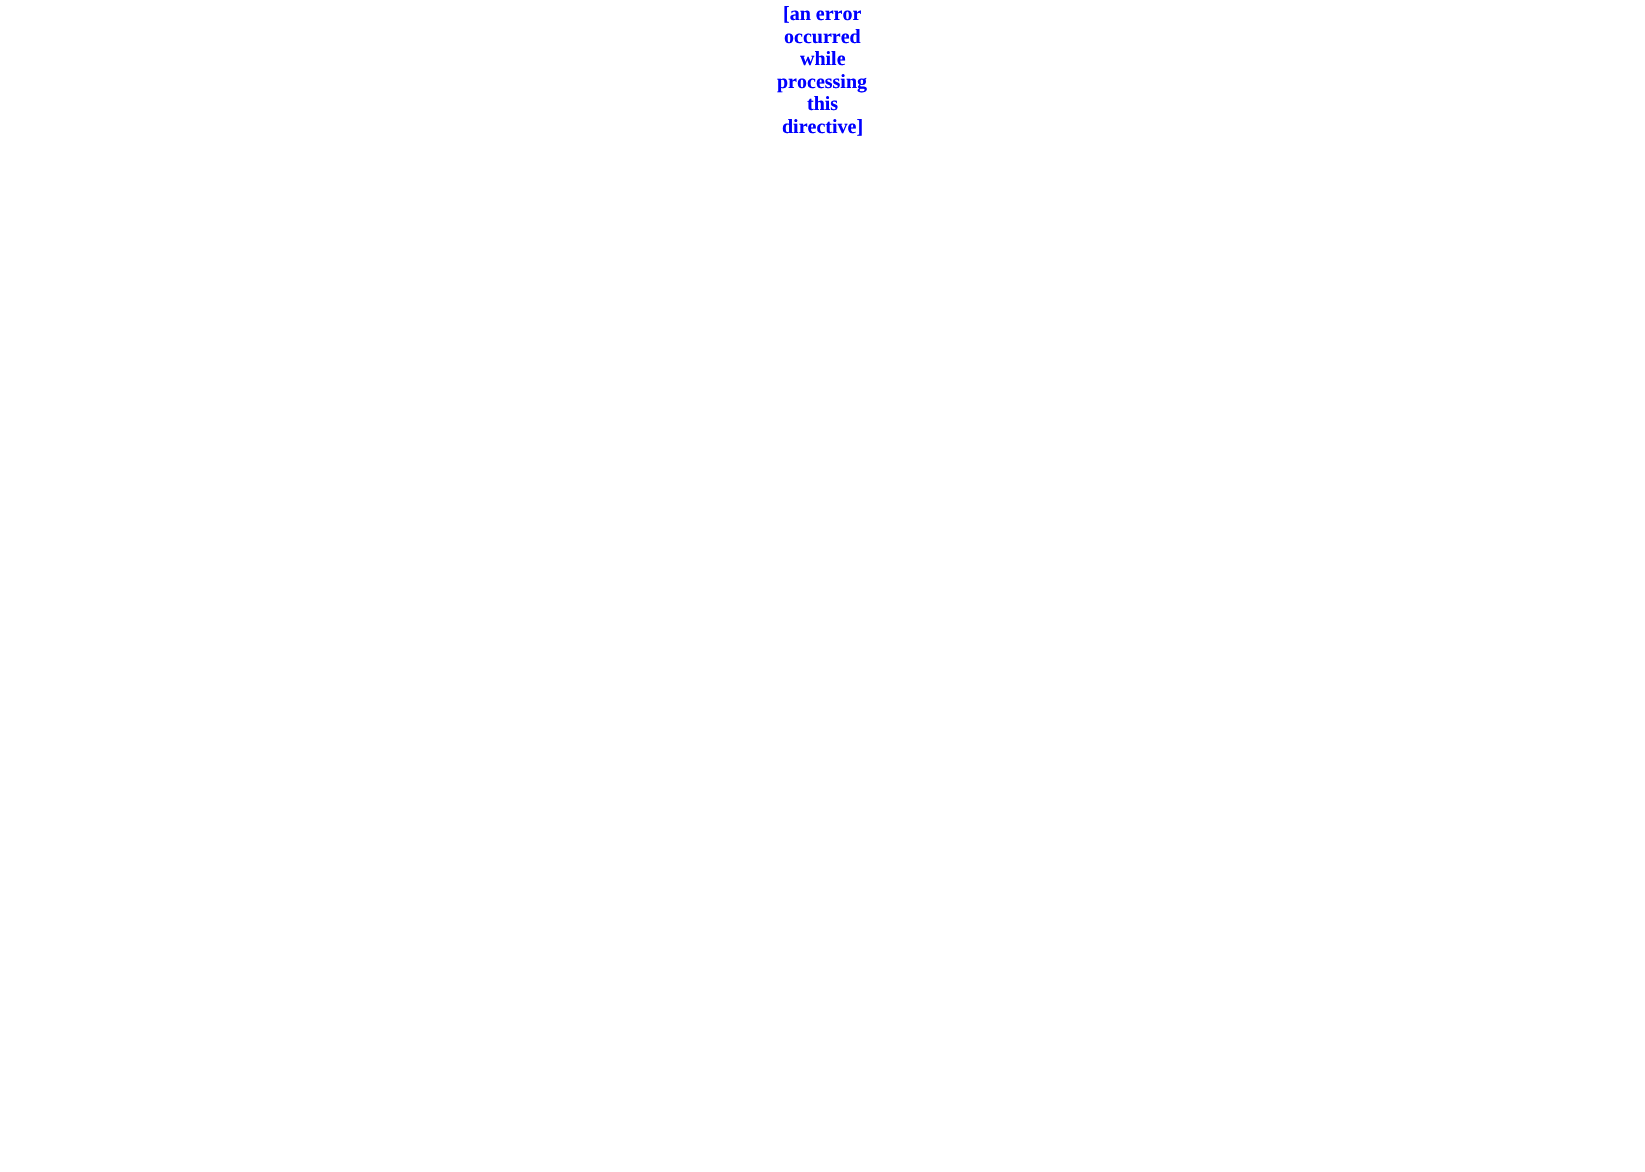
void draw(SkCanvas* c) {
SkPaint p;
p.setAntiAlias(true);
auto F=[&](const char* family, int weight, float size, bool italic = false){SkFontStyle style(weight, SkFontStyle::kNormal_Width,italic ? SkFontStyle::kItalic_Slant : SkFontStyle::kUpright_Slant);SkFont result(fontMgr->matchFamilyStyle(family, style), size);result.setSubpixel(true);return result;};
auto T=[&](const char* s, float x, float y, const SkFont& font){c->drawString(s, x, y, font, p);};
c->clear(0xffffffff);
auto f1 = F("Liberation Serif",700,20);
p.setColor(0xff0000ff);
T("[an error",783,20,f1);
T("occurred",784,43,f1);
T("while",800,65,f1);
T("processing",777,88,f1);
T("this",807,110,f1);
T("directive]",782,133,f1);
}
